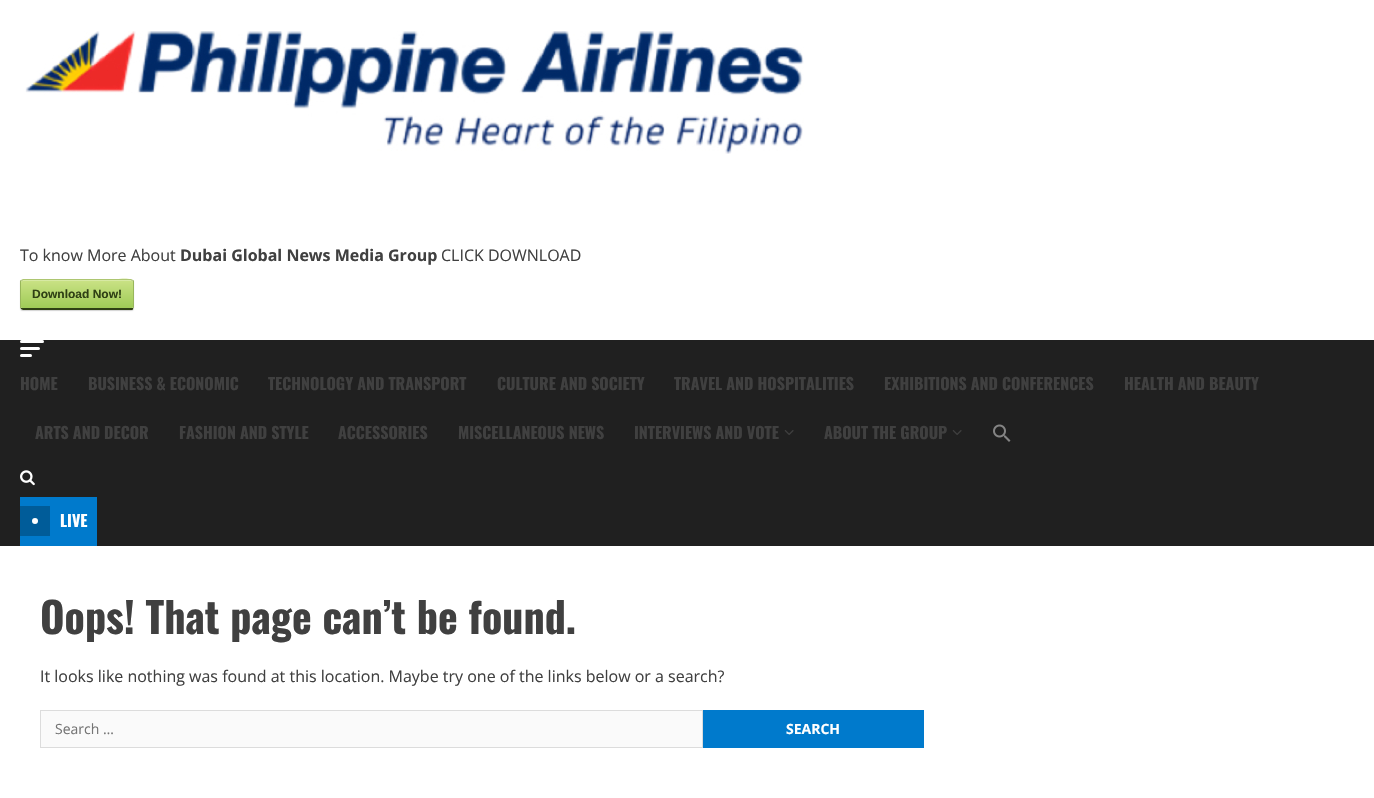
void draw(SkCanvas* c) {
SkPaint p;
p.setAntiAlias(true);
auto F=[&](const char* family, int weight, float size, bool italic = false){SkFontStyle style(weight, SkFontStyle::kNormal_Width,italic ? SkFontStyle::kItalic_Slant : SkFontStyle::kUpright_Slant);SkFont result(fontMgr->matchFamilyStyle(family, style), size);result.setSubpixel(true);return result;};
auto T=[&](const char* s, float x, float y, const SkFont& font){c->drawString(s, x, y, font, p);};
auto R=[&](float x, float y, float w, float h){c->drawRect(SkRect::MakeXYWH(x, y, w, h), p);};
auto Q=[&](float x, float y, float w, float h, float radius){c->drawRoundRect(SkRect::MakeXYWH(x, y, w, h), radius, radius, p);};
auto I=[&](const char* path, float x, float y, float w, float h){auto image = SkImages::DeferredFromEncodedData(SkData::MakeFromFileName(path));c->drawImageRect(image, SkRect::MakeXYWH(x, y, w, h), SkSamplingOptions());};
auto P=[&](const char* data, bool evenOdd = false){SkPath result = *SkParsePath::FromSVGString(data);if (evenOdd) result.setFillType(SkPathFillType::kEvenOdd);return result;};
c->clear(0xffffffff);
I("1.png",25,31,779,123);
auto f1 = F("Open Sans",400,16);
p.setColor(0xff404040);
T("To know More About",20,261,f1);
auto f2 = F("Open Sans",700,16);
T("Dubai Global News Media Group",180,261,f2);
T("CLICK DOWNLOAD",441,261,f1);
p.setColor(0xffd3d3d3);
p.setMaskFilter(SkMaskFilter::MakeBlur(kNormal_SkBlurStyle, .5));
c->drawRoundRect(SkRect::MakeXYWH(20,280,114,31),3,3,p);
p.setMaskFilter(nullptr);
{
const SkColor colors[] = {0xffcae285,0xff9fcb57};
const float stops[] = {0,1};
const SkPoint ends[] = {{21,280}, {21,308}};
p.setShader(SkGradientShader::MakeLinear(ends, colors, stops, 2, SkTileMode::kClamp));
p.setAlpha(255);
}
c->drawPath(P("M23 280h108c1 0 2 1 2 2v25c0 1-1 1-2 1h-108c-1 0-2 0-2-1v-25c0-1 1-2 2-2z"),p);
p.setShader(nullptr);
p.setColor(0xffd7e9a4);
c->drawPath(P("M23 281h108c1 0 2 1 2 2c0-8-20-3-20-3h-90c-2 0-2 2-2 3c0-1 1-2 2-2z"),p);
p.setColor(0xffadc671);
c->drawPath(P("M23 279l-2 1l1 1l1-1h90h18l1 1l1-1l-2-1z"),p);
p.setColor(0xff98b65b);
c->drawPath(P("M134 307v-25c0-1 0-2-1-2l-.5 .5l.5 1.5v25.5l.5 1.5z"),p);
p.setColor(0xff2f4014);
c->drawPath(P("M23 310h108c1 0 2 0 2-1v-1h-1h-91h-18h-2v1z"),p);
p.setColor(0xff98b65b);
c->drawPath(P("M20 282v25c0 1 0 1.5 .5 2l.5-1.5v-25.5l.5-1.5l-.5-.5c-1 0-1 1-1 2z"),p);
auto f3 = F("Liberation Sans",700,12);
p.setColor(0xff2f4014);
T("Download Now!",32,298,f3);
p.setColor(0xff202020);
R(0,340,1374,206);
p.setColor(0xffffffff);
Q(20,340,24,3,1.5);
Q(20,347,20,3,1.5);
Q(20,354,12,3,1.5);
auto f4 = F("Oswald",700,16);
p.setColor(0xff404040);
T("HOME",20,390,f4);
T("BUSINESS & ECONOMIC",88,390,f4);
T("TECHNOLOGY AND TRANSPORT",268,390,f4);
T("CULTURE AND SOCIETY",497,390,f4);
T("TRAVEL AND HOSPITALITIES",674,390,f4);
T("EXHIBITIONS AND CONFERENCES",884,390,f4);
T("HEALTH AND BEAUTY",1124,390,f4);
T("ARTS AND DECOR",35,439,f4);
T("FASHION AND STYLE",179,439,f4);
T("ACCESSORIES",338,439,f4);
T("MISCELLANEOUS NEWS",458,439,f4);
T("INTERVIEWS AND VOTE",634,439,f4);
I("2.png",784,430,10,5);
T("ABOUT THE GROUP",824,439,f4);
I("2.png",952,430,10,5);
I("3.png",993,424,18,18);
I("4.png",20,470,15,16);
p.setColor(0xff007acc);
R(20,497,77,49);
p.setColor(0xff005c99);
R(20,506,30,30);
p.setColor(0xffffffff);
c->drawCircle(35,521,3,p);
T("LIVE",60,527,f4);
auto f5 = F("Oswald",700,42);
p.setColor(0xff404040);
T("Oops! That page can’t be found.",40,634,f5);
T("It looks like nothing was found at this location. Maybe try one of the links below or a search?",40,682,f1);
p.setColor(0xfffafafa);
c->drawRect(SkRect::MakeXYWH(40.5,710.5,662,37),p);
p.setStroke(true);
p.setStrokeWidth(1);
p.setColor(0xffdcdcdc);
c->drawRect(SkRect::MakeXYWH(40.5,710.5,662,37),p);
auto f6 = F("Open Sans",400,14);
p.setStroke(false);
p.setColor(0xff757575);
T("Search …",55,734,f6);
p.setColor(0xff007acc);
R(703,710,221,38);
auto f7 = F("Open Sans",700,14);
p.setColor(0xffffffff);
T("SEARCH",786,734,f7);
}
